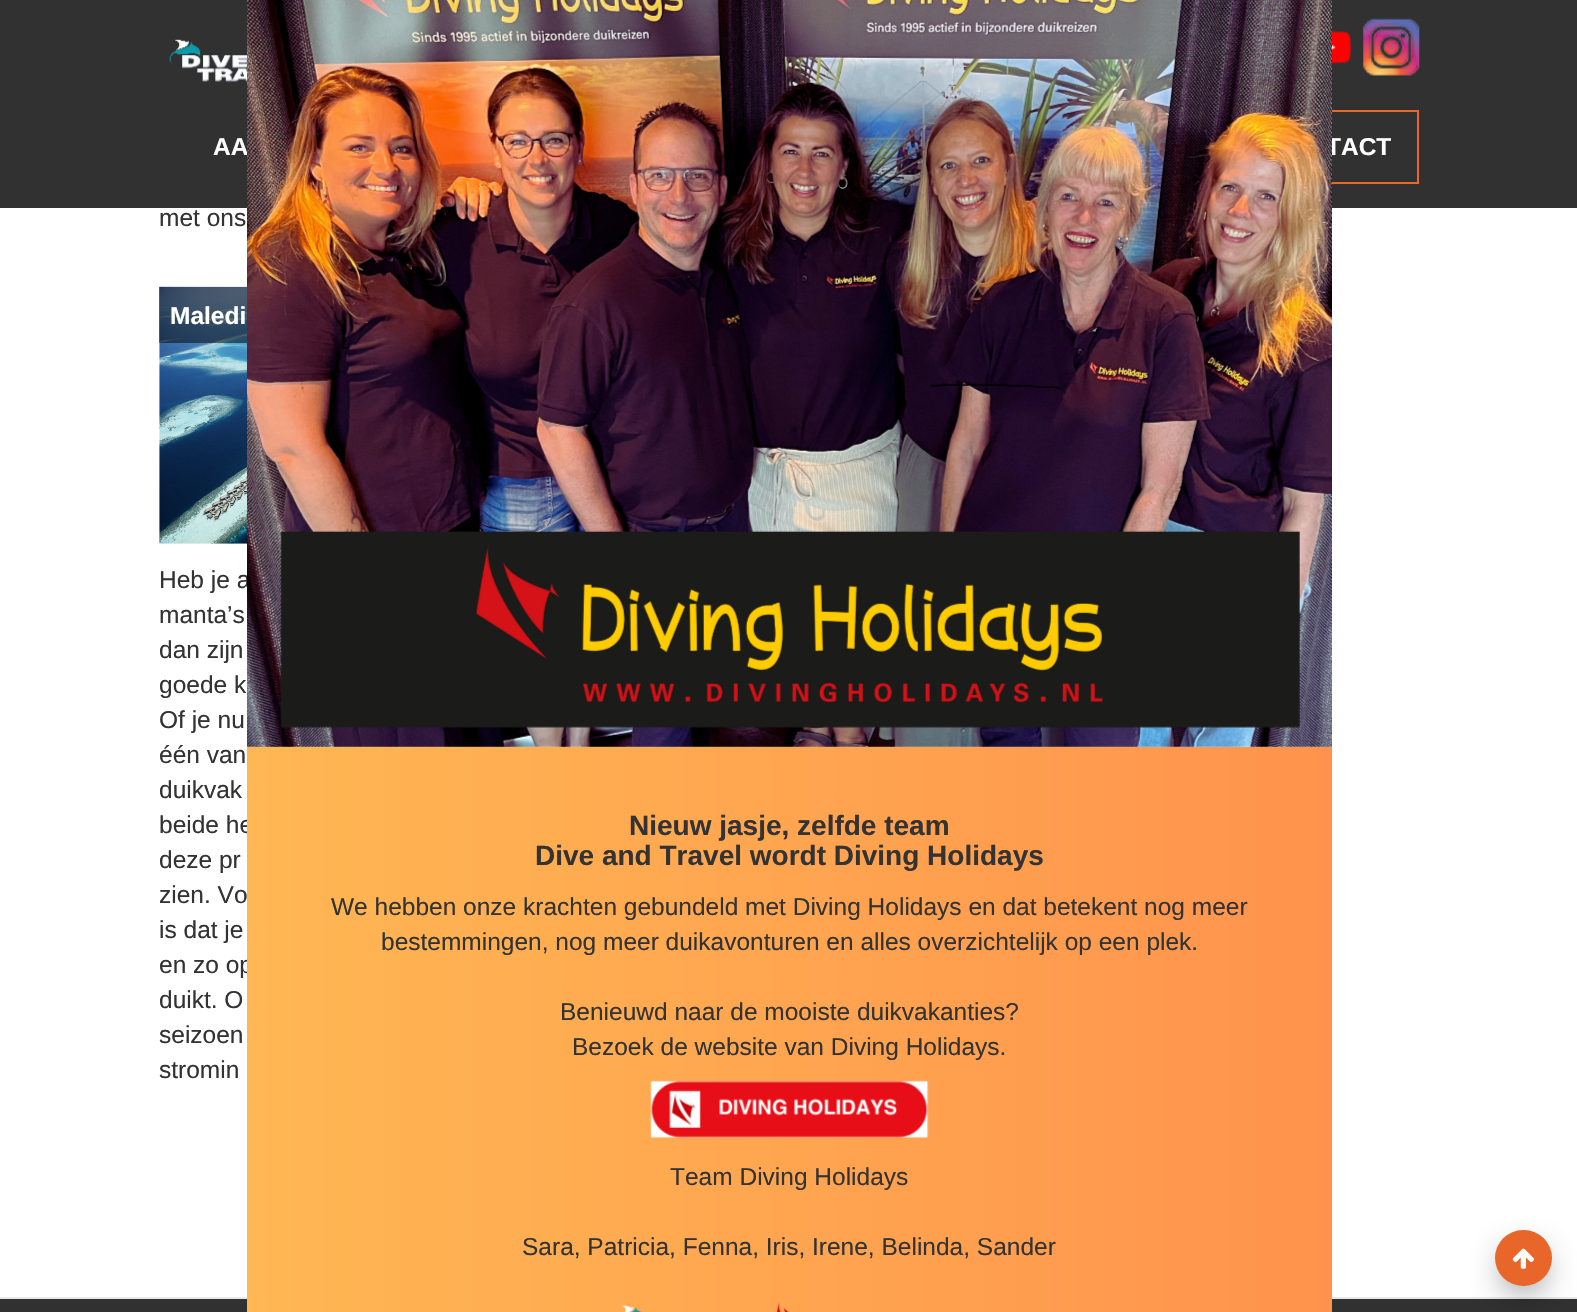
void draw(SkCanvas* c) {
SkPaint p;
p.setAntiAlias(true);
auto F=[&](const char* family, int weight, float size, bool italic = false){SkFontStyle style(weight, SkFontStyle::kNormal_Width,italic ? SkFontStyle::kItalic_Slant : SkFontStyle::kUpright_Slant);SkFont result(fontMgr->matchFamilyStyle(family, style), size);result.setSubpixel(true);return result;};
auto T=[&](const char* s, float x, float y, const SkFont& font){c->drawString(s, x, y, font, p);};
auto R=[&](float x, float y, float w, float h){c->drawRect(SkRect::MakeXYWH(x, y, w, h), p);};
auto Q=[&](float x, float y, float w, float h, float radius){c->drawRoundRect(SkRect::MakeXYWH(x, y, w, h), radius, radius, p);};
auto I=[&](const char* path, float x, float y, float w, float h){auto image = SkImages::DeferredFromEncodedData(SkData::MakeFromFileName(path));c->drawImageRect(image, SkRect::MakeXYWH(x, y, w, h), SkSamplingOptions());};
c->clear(0xffffffff);
p.setColor(0xff313131);
R(0,0,1577,208);
I("1.png",169,39,78,43);
I("2.png",1332,30,20,34);
I("3.png",1363,18,57,58);
auto f1 = F("Liberation Sans",700,24.5);
p.setColor(0xffffffff);
T("AA",213,155,f1);
p.setStroke(true);
p.setStrokeWidth(2);
p.setColor(0xffe96729);
c->drawRect(SkRect::MakeXYWH(1245,111,173,72),p);
p.setStroke(false);
p.setColor(0xffffffff);
T("TACT",1326,155,f1);
auto f2 = F("Liberation Sans",400,24.5);
p.setColor(0xff333333);
T("met ons",159,226,f2);
I("4.png",159,286,88,258);
p.setColor(0x80000000);
R(159,287,88,56);
p.setColor(0xffffffff);
T("Maledi",170,324,f1);
p.setColor(0xff333333);
T("Heb je a",159,588,f2);
T("manta’s",159,623,f2);
T("dan zijn",159,658,f2);
T("goede k",159,693,f2);
T("Of je nu",159,728,f2);
T("één van",159,763,f2);
T("duikvak",159,798,f2);
T("beide he",159,833,f2);
T("deze pr",159,868,f2);
T("zien. Vo",159,903,f2);
T("is dat je",159,938,f2);
T("en zo op",159,973,f2);
T("duikt. O",159,1008,f2);
T("seizoen",159,1043,f2);
T("stromin",159,1078,f2);
p.setColor(0xff313131);
R(0,1299,1577,13);
p.setColor(0xffe8e8e8);
R(0,1297,1577,2);
p.setColor(0xbf000000);
p.setMaskFilter(SkMaskFilter::MakeBlur(kNormal_SkBlurStyle, 17.5));
c->drawRoundRect(SkRect::MakeXYWH(1507,1255,33,31),15.5,15.5,p);
p.setMaskFilter(nullptr);
p.setColor(0xffe9662b);
Q(1495,1230,57,56,28);
I("5.png",1512,1248,22,21);
I("6.png",247,0,1085,747);
{
const SkColor colors[] = {0xffffb753,0xffff934d};
const float stops[] = {0,1};
const SkPoint ends[] = {{247,1063}, {1332,1063}};
p.setShader(SkGradientShader::MakeLinear(ends, colors, stops, 2, SkTileMode::kClamp));
p.setAlpha(255);
}
R(247,747,1085,565);
auto f3 = F("Liberation Sans",700,28);
p.setShader(nullptr);
p.setColor(0xff333333);
T("Nieuw jasje, zelfde team",629,835,f3);
T("Dive and Travel wordt Diving Holidays",535,865,f3);
T("We hebben onze krachten gebundeld met Diving Holidays en dat betekent nog meer",331,915,f2);
T("bestemmingen, nog meer duikavonturen en alles overzichtelijk op een plek.",381,950,f2);
T("Benieuwd naar de mooiste duikvakanties?",560,1020,f2);
T("Bezoek de website van Diving Holidays.",572,1055,f2);
I("7.png",650,1080,279,58);
T("Team Diving Holidays",670,1185,f2);
T("Sara, Patricia, Fenna, Iris, Irene, Belinda, Sander",522,1255,f2);
I("8.png",622,1305,20,7);
I("9.png",776,1302,14,10);
}
